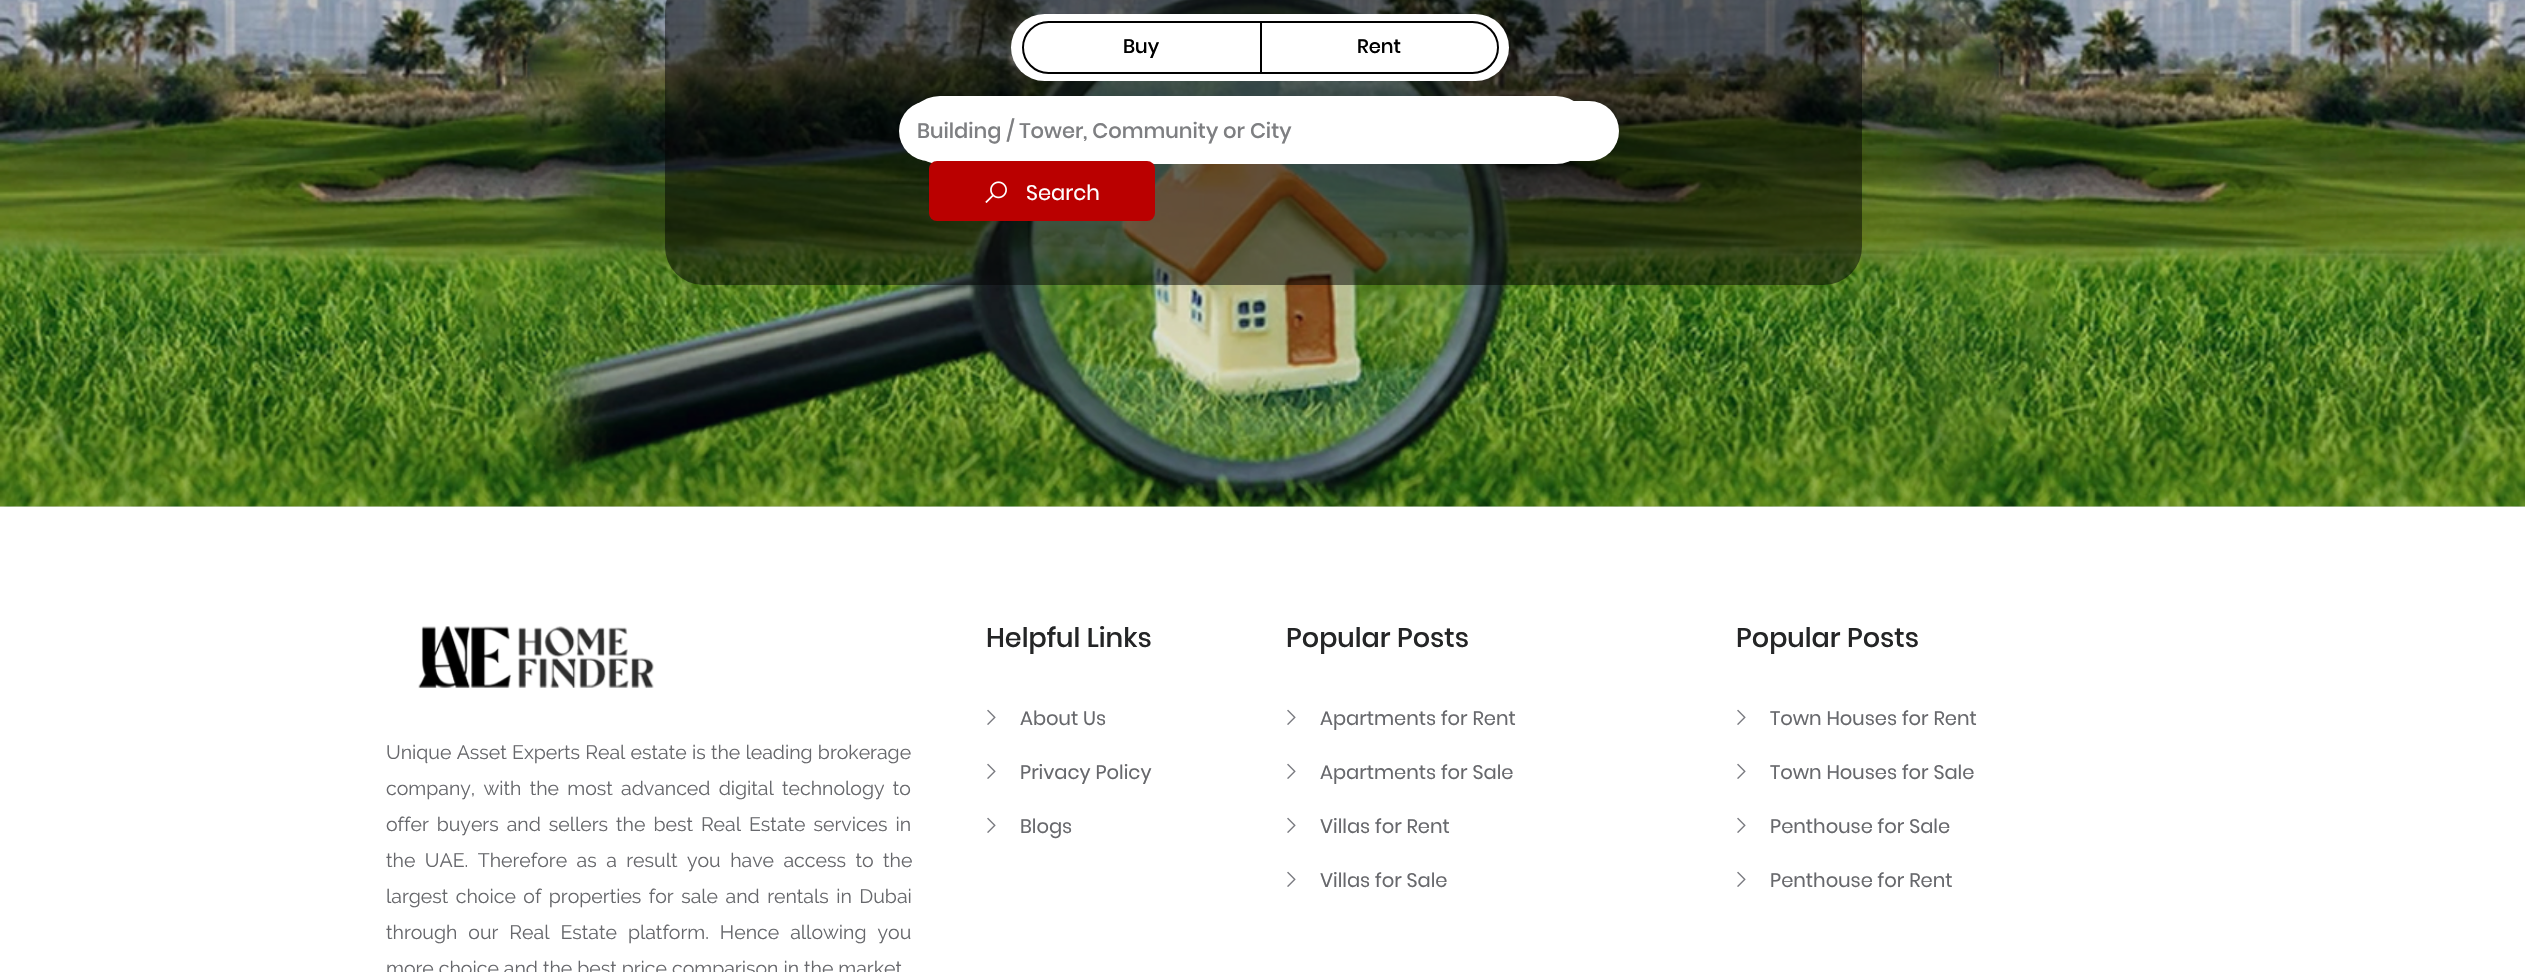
void draw(SkCanvas* c) {
SkPaint p;
p.setAntiAlias(true);
auto F=[&](const char* family, int weight, float size, bool italic = false){SkFontStyle style(weight, SkFontStyle::kNormal_Width,italic ? SkFontStyle::kItalic_Slant : SkFontStyle::kUpright_Slant);SkFont result(fontMgr->matchFamilyStyle(family, style), size);result.setSubpixel(true);return result;};
auto T=[&](const char* s, float x, float y, const SkFont& font){c->drawString(s, x, y, font, p);};
auto L=[&](const char* s, float x, float y, const SkFont& font, const SkPaint& ink, float letter, float word){std::vector<SkGlyphID> glyphs(font.countText(s, strlen(s), SkTextEncoding::kUTF8));std::vector<float> xs(glyphs.size());font.textToGlyphs(s, strlen(s), SkTextEncoding::kUTF8, glyphs);font.getXPos(glyphs, xs, x);float extra = 0;for (size_t i = 0; i < glyphs.size(); i++) {xs[i] += extra;extra += letter + word * (glyphs[i] == font.unicharToGlyph(' '));}c->drawTextBlob(SkTextBlob::MakeFromPosHGlyphs(glyphs, xs, y, font), 0, 0, ink);};
auto R=[&](float x, float y, float w, float h){c->drawRect(SkRect::MakeXYWH(x, y, w, h), p);};
auto Q=[&](float x, float y, float w, float h, float radius){c->drawRoundRect(SkRect::MakeXYWH(x, y, w, h), radius, radius, p);};
auto I=[&](const char* path, float x, float y, float w, float h){auto image = SkImages::DeferredFromEncodedData(SkData::MakeFromFileName(path));c->drawImageRect(image, SkRect::MakeXYWH(x, y, w, h), SkSamplingOptions());};
auto P=[&](const char* data, bool evenOdd = false){SkPath result = *SkParsePath::FromSVGString(data);if (evenOdd) result.setFillType(SkPathFillType::kEvenOdd);return result;};
c->clear(0xffffffff);
p.setColor(0xffdfe0e7);
R(0,506,2525,1);
I("1.png",0,0,2525,507);
p.setColor(0x80000000);
Q(665,-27,1197,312,38);
p.setColor(0xffffffff);
Q(1011,14,498,67,33.5);
p.setStroke(true);
p.setStrokeWidth(2);
p.setColor(0xff000000);
c->drawPath(P("M1048.5 22h212.5v51h-212.5c-14 0-25.5-11.5-25.5-25.5c0-14 11.5-25.5 25.5-25.5z"),p);
auto f1 = F("Poppins",500,19.5);
p.setStroke(false);
T("Buy",1123,53,f1);
p.setStroke(true);
c->drawPath(P("M1261 22h211.5c14 0 25.5 11.5 25.5 25.5c0 14-11.5 25.5-25.5 25.5h-211.5z"),p);
p.setStroke(false);
T("Rent",1357,53,f1);
p.setColor(0xffffffff);
Q(906,96,684,68,34);
Q(899,101,720,60,30);
auto f2 = F("Poppins",500,21);
p.setColor(0xff7e7f82);
T("Building / Tower, Community or City",917,138,f2);
p.setColor(0xffba0000);
Q(929,161,226,60,8);
I("2.png",985,181,22,22);
auto f3 = F("Poppins",400,21);
p.setColor(0xffffffff);
T("Search",1026,200,f3);
I("3.png",418,626,236,62);
auto f4 = F("Raleway",400,19.5);
p.setColor(0xff67686c);
L("Unique Asset Experts Real estate is the leading brokerage",386,759,f4,p,0,.25);
L("company, with the most advanced digital technology to",386,795,f4,p,0,3.25);
L("offer buyers and sellers the best Real Estate services in",386,831,f4,p,0,3);
L("the UAE. Therefore as a result you have access to the",386,867,f4,p,0,4.5);
L("largest choice of properties for sale and rentals in Dubai",386,903,f4,p,0,2.5);
L("through our Real Estate platform. Hence allowing you",386,939,f4,p,0,6);
T("more choice and the best price comparison in the market",386,975,f4);
auto f5 = F("Poppins",500,27);
p.setColor(0xff242526);
T("Helpful Links",986,647,f5);
I("4.png",987,709,9,16);
auto f6 = F("Poppins",400,19.5);
p.setColor(0xff67686c);
T("About Us",1020,725,f6);
I("4.png",987,763,9,16);
T("Privacy Policy",1020,779,f6);
I("4.png",987,817,9,16);
T("Blogs",1020,833,f6);
p.setColor(0xff242526);
T("Popular Posts",1286,647,f5);
I("4.png",1287,709,9,16);
p.setColor(0xff67686c);
T("Apartments for Rent",1320,725,f6);
I("4.png",1287,763,9,16);
T("Apartments for Sale",1320,779,f6);
I("4.png",1287,817,9,16);
T("Villas for Rent",1320,833,f6);
I("4.png",1287,871,9,16);
T("Villas for Sale",1320,887,f6);
p.setColor(0xff242526);
T("Popular Posts",1736,647,f5);
I("4.png",1737,709,9,16);
p.setColor(0xff67686c);
T("Town Houses for Rent",1770,725,f6);
I("4.png",1737,763,9,16);
T("Town Houses for Sale",1770,779,f6);
I("4.png",1737,817,9,16);
T("Penthouse for Sale",1770,833,f6);
I("4.png",1737,871,9,16);
T("Penthouse for Rent",1770,887,f6);
}
